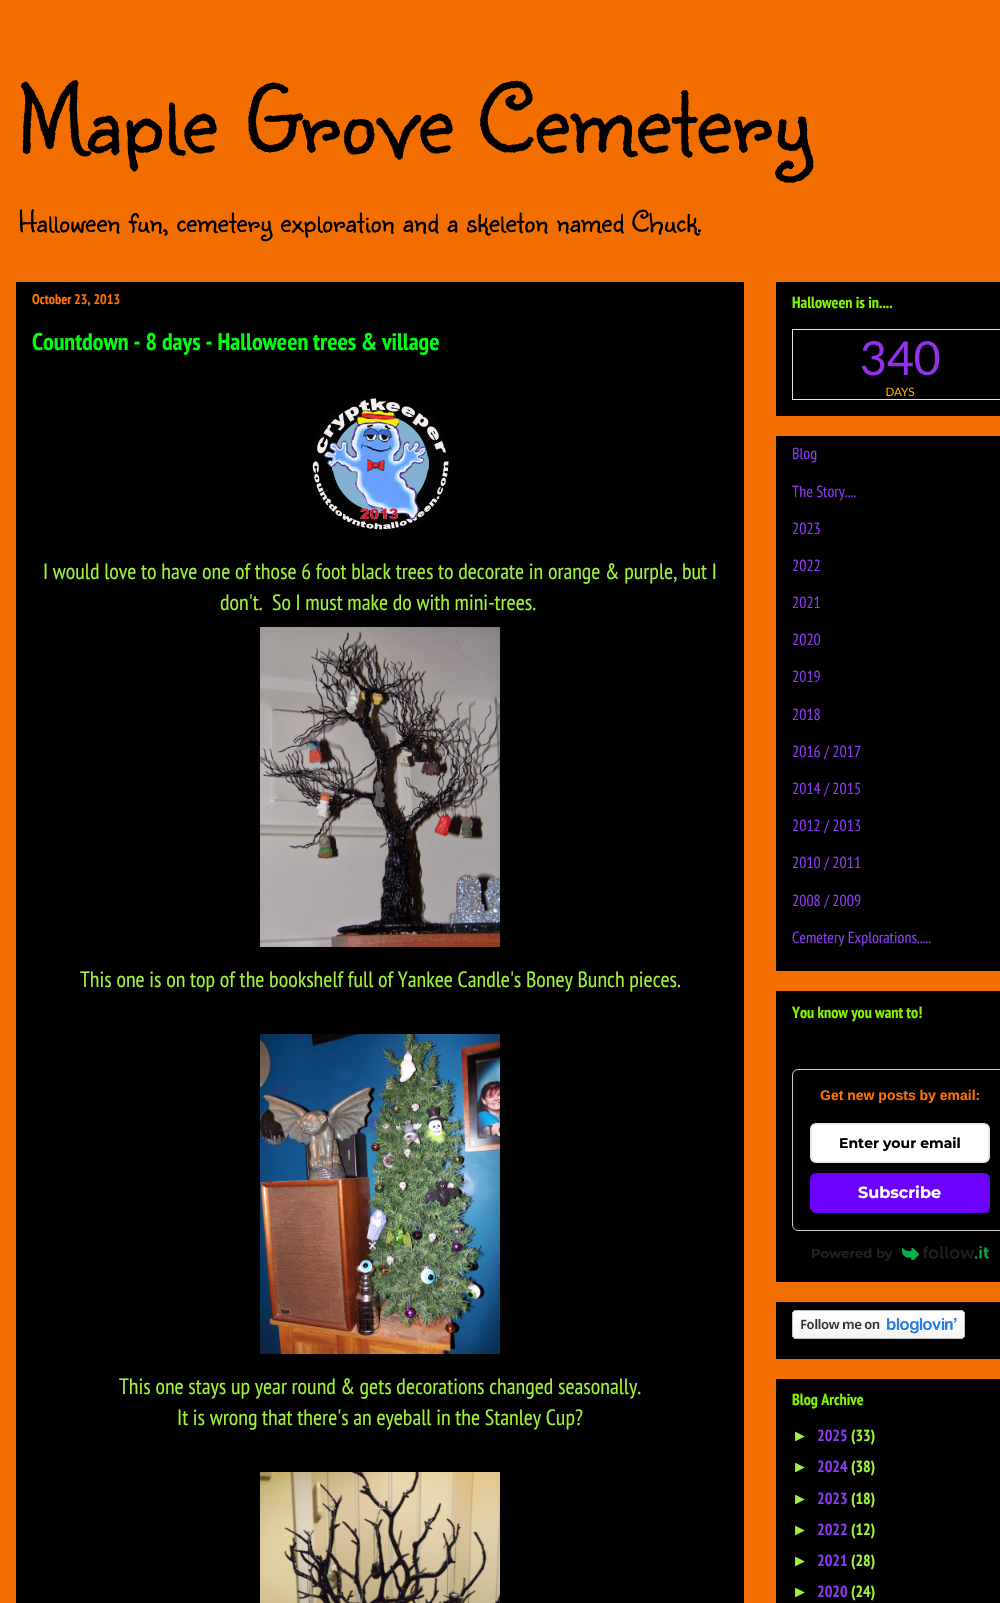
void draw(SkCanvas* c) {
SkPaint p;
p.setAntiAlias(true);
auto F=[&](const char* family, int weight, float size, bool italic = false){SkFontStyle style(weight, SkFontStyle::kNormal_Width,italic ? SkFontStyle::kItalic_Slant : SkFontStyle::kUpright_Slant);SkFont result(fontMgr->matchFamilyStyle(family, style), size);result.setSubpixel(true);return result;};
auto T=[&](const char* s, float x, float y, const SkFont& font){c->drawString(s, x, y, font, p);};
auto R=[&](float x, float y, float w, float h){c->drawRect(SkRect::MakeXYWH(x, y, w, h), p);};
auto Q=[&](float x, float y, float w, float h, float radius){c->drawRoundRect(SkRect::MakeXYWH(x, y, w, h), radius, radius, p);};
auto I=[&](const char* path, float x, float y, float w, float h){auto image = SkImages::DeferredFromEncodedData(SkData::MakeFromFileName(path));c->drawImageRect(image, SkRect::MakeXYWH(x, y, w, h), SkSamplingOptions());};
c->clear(0xfff36e00);
auto f1 = F("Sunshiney",400,100);
p.setColor(0xff000000);
T("Maple Grove Cemetery",16,153,f1);
auto f2 = F("Sunshiney",400,31);
T("Halloween fun, cemetery exploration and a skeleton named Chuck.",18,232,f2);
R(16,282,728,1321);
auto f3 = F("PT Sans Narrow",700,14);
p.setColor(0xffff7300);
T("October 23, 2013",32,304,f3);
auto f4 = F("PT Sans Narrow",700,24);
p.setColor(0xff00ff10);
T("Countdown - 8 days - Halloween trees & village",32,350,f4);
I("1.png",312,398,137,132);
auto f5 = F("PT Sans Narrow",400,22);
p.setColor(0xffa0f33a);
T("I would love to have one of those 6 foot black trees to decorate in orange & purple, but I",43,579,f5);
T("don't.  So I must make do with mini-trees.",220,610,f5);
I("2.png",260,627,240,320);
T("This one is on top of the bookshelf full of Yankee Candle's Boney Bunch pieces.",80,987,f5);
I("3.png",260,1034,240,320);
T("This one stays up year round & gets decorations changed seasonally.",119,1394,f5);
T("It is wrong that there's an eyeball in the Stanley Cup?",177,1425,f5);
I("4.png",260,1472,240,131);
p.setColor(0xff000000);
R(776,282,224,134);
auto f6 = F("PT Sans Narrow",700,16);
p.setColor(0xff84f300);
T("Halloween is in....",792,308,f6);
I("5.png",792,329,208,71);
p.setColor(0xff000000);
R(776,436,224,535);
auto f7 = F("PT Sans Narrow",400,16);
p.setColor(0xff8d3af3);
T("Blog",792,459,f7);
T("The Story....",792,497,f7);
T("2023",792,534,f7);
T("2022",792,571,f7);
T("2021",792,608,f7);
T("2020",792,645,f7);
T("2019",792,682,f7);
T("2018",792,720,f7);
T("2016 / 2017",792,757,f7);
T("2014 / 2015",792,794,f7);
T("2012 / 2013",792,831,f7);
T("2010 / 2011",792,868,f7);
T("2008 / 2009",792,906,f7);
T("Cemetery Explorations.....",792,943,f7);
p.setColor(0xff000000);
R(776,991,224,291);
p.setColor(0xff84f300);
T("You know you want to!",792,1018,f6);
p.setStroke(true);
p.setStrokeWidth(1);
p.setColor(0xffcccccc);
c->drawRoundRect(SkRect::MakeXYWH(792.5,1069.5,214,161),5.5,5.5,p);
auto f8 = F("Liberation Sans",700,14);
p.setStroke(false);
p.setColor(0xffff7300);
T("Get new posts by email:",820,1100,f8);
p.setColor(0xffffffff);
c->drawRoundRect(SkRect::MakeXYWH(811,1124,178,38),5,5,p);
p.setStroke(true);
p.setStrokeWidth(2);
p.setColor(0xffe9e8e8);
c->drawRoundRect(SkRect::MakeXYWH(811,1124,178,38),5,5,p);
auto f9 = F("Montserrat",100,14);
p.setStroke(false);
p.setColor(0xff000000);
T("Enter your email",839,1148,f9);
p.setColor(0xff6c00ff);
Q(810,1173,180,40,6);
auto f10 = F("Montserrat",100,16);
p.setColor(0xffffffff);
T("Subscribe",858,1198,f10);
auto f11 = F("Montserrat",100,13);
p.setColor(0xff231f20);
T("Powered by",811,1258,f11);
I("6.png",902,1246,87,14);
p.setColor(0xff000000);
R(776,1302,224,57);
I("7.png",792,1310,173,29);
R(776,1379,224,224);
p.setColor(0xff84f300);
T("Blog Archive",792,1405,f6);
auto f12 = F("Liberation Sans",700,16);
p.setColor(0xffa0f33a);
T("►",792,1441,f12);
p.setColor(0xff8d3af3);
T("2025",817,1441,f6);
p.setColor(0xffa0f33a);
T("(33)",851,1441,f6);
T("►",792,1472,f12);
p.setColor(0xff8d3af3);
T("2024",817,1472,f6);
p.setColor(0xffa0f33a);
T("(38)",851,1472,f6);
T("►",792,1504,f12);
p.setColor(0xff8d3af3);
T("2023",817,1504,f6);
p.setColor(0xffa0f33a);
T("(18)",851,1504,f6);
T("►",792,1535,f12);
p.setColor(0xff8d3af3);
T("2022",817,1535,f6);
p.setColor(0xffa0f33a);
T("(12)",851,1535,f6);
T("►",792,1566,f12);
p.setColor(0xff8d3af3);
T("2021",817,1566,f6);
p.setColor(0xffa0f33a);
T("(28)",851,1566,f6);
T("►",792,1597,f12);
p.setColor(0xff8d3af3);
T("2020",817,1597,f6);
p.setColor(0xffa0f33a);
T("(24)",851,1597,f6);
}
